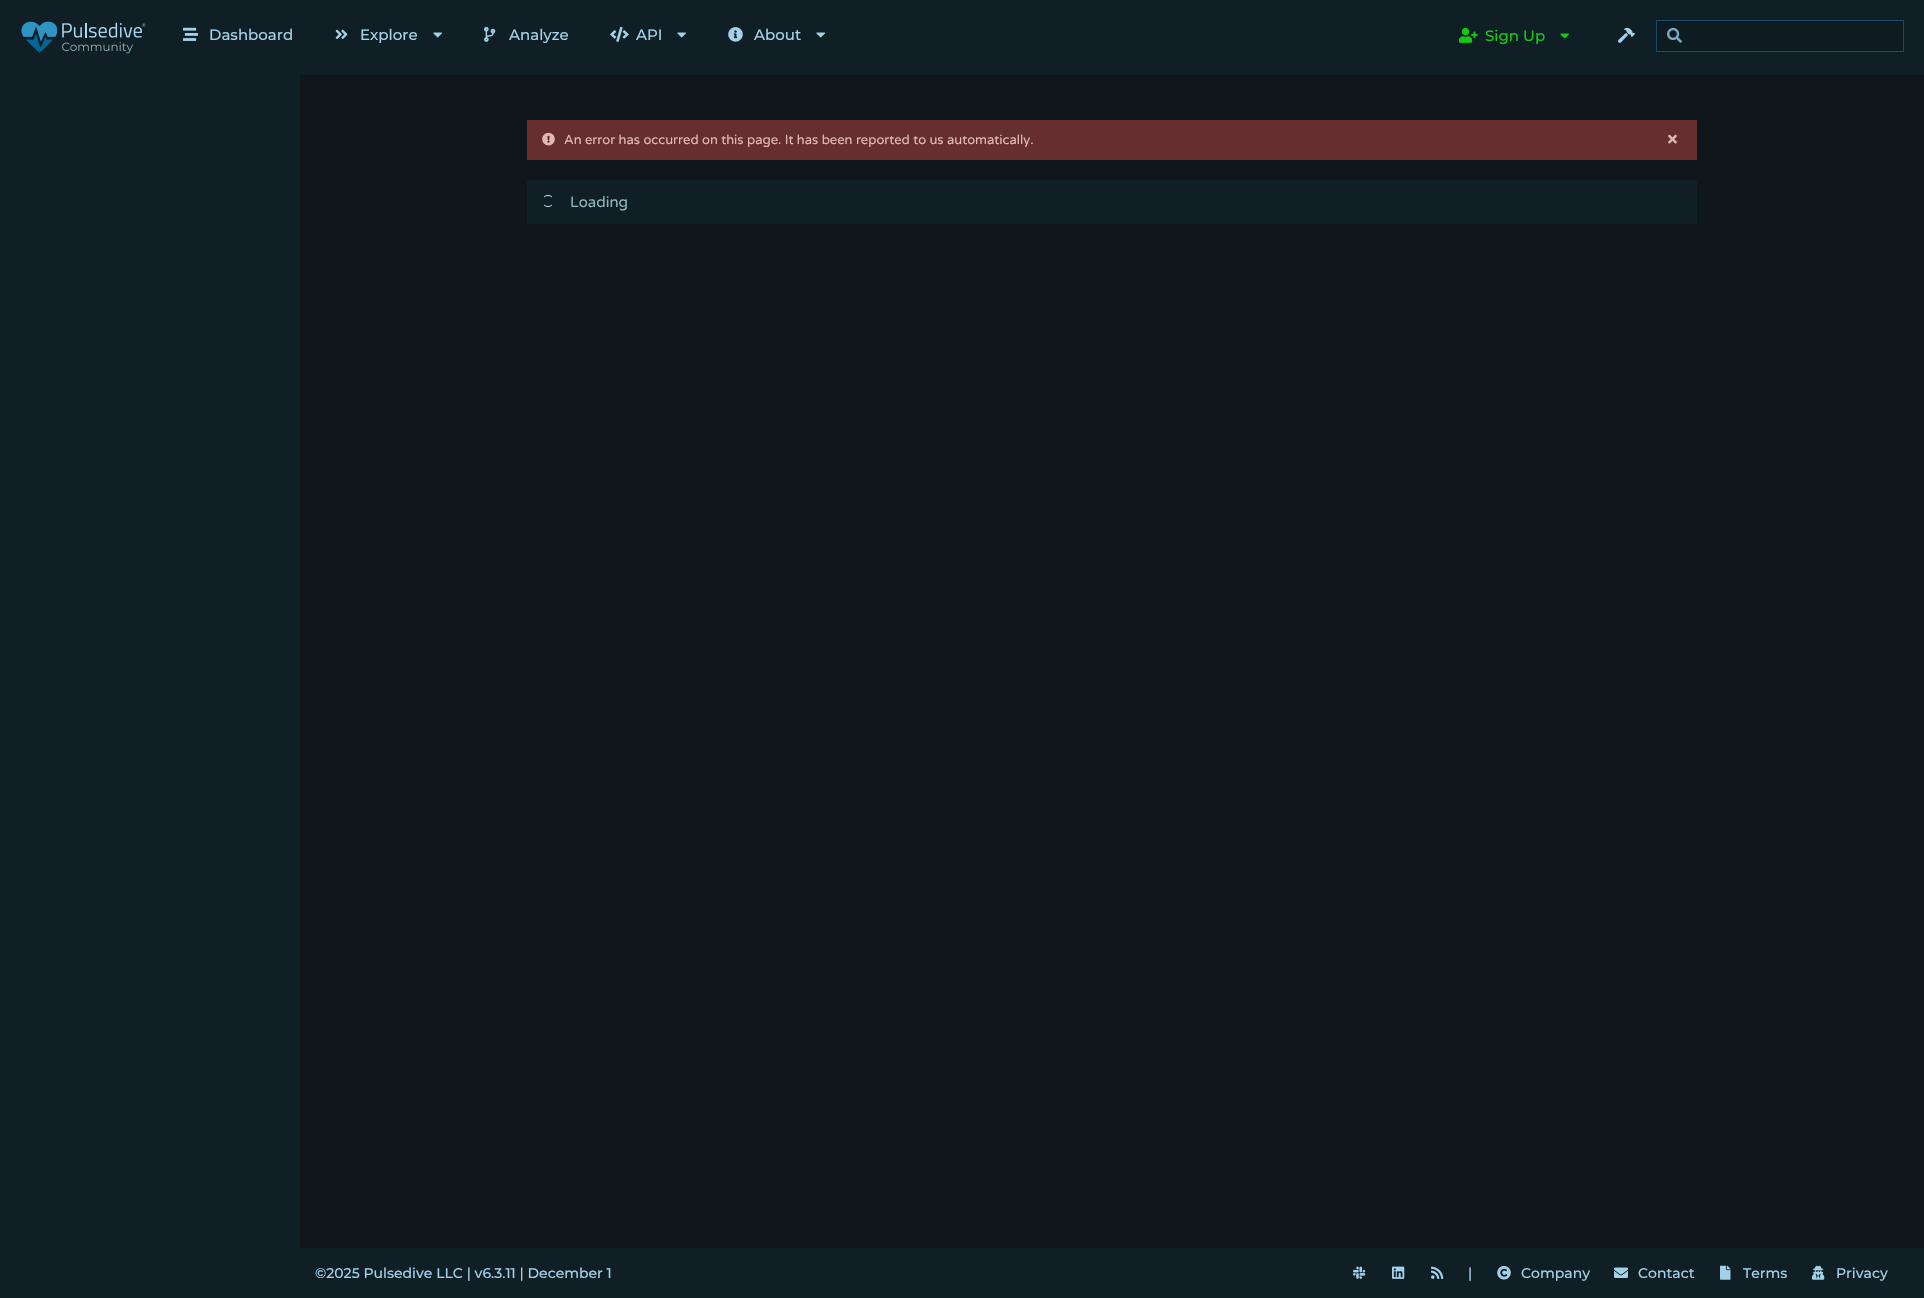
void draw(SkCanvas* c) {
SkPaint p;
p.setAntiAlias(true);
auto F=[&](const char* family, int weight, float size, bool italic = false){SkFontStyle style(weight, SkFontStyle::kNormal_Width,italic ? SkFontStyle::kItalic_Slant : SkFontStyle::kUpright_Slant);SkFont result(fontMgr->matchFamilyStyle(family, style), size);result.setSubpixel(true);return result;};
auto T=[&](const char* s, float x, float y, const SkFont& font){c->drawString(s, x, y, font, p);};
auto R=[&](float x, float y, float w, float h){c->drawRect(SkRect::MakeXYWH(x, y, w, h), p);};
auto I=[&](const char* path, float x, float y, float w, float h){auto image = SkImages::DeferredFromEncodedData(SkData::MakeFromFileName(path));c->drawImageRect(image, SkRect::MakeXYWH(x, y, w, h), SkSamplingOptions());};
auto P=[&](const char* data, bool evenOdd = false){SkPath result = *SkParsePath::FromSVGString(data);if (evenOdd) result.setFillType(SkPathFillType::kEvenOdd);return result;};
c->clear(0xff10171a);
p.setColor(0xff101f26);
R(0,0,1924,75);
I("1.png",21,21,125,33);
I("2.png",183,27,15,14);
auto f1 = F("Montserrat",500,15);
p.setColor(0xffa2d1e8);
T("Dashboard",209,40,f1);
I("3.png",335,29,13,10);
T("Explore",360,40,f1);
I("4.png",433,32,9,6);
I("5.png",484,26,12,16);
T("Analyze",509,40,f1);
I("6.png",610,26,19,16);
T("API",636,40,f1);
I("4.png",677,32,9,6);
I("7.png",728,27,15,15);
T("About",754,40,f1);
I("4.png",816,32,9,6);
I("8.png",1459,27,19,16);
p.setColor(0xff14c914);
T("Sign Up",1485,41,f1);
I("9.png",1560,33,9,6);
I("10.png",1618,27,17,16);
p.setColor(0xff0e1b20);
c->drawRect(SkRect::MakeXYWH(1656.5,20.5,247,31),p);
p.setStroke(true);
p.setStrokeWidth(1);
p.setColor(0xff1c4b65);
c->drawRect(SkRect::MakeXYWH(1656.5,20.5,247,31),p);
I("11.png",1667,27,15,16);
p.setStroke(false);
p.setColor(0xff101f26);
R(0,75,300,1223);
p.setColor(0xff662e2e);
R(527,120,1170,40);
I("12.png",542,132,13,14);
auto f2 = F("Varela Round",400,13);
p.setColor(0xffe0b8b8);
T("An error has occurred on this page. It has been reported to us automatically.",564,144,f2);
I("13.png",1668,134,9,10);
p.setColor(0xff101f26);
R(527,180,1170,44);
p.setStroke(true);
p.setColor(0xffcee4ef);
c->drawPath(P("M544 197c2-2 6-2 8 0m0 8c-2 2-6 2-8 0"),p);
auto f3 = F("Varela Round",400,15);
p.setStroke(false);
p.setColor(0xff90b7bd);
T("Loading",570,207,f3);
p.setColor(0xff101f26);
R(300,1248,1624,50);
auto f4 = F("Montserrat",500,14);
p.setColor(0xffa2d1e8);
T("©2025 Pulsedive LLC | v6.3.11 | December 1",315,1278,f4);
I("14.png",1353,1266,13,13);
I("15.png",1392,1266,13,13);
I("16.png",1431,1266,13,13);
T("|",1468,1278,f4);
I("17.png",1497,1266,14,14);
T("Company",1521,1278,f4);
I("18.png",1614,1267,14,11);
T("Contact",1638,1278,f4);
I("19.png",1720,1265,11,15);
T("Terms",1743,1278,f4);
I("20.png",1812,1265,13,15);
T("Privacy",1836,1278,f4);
}
